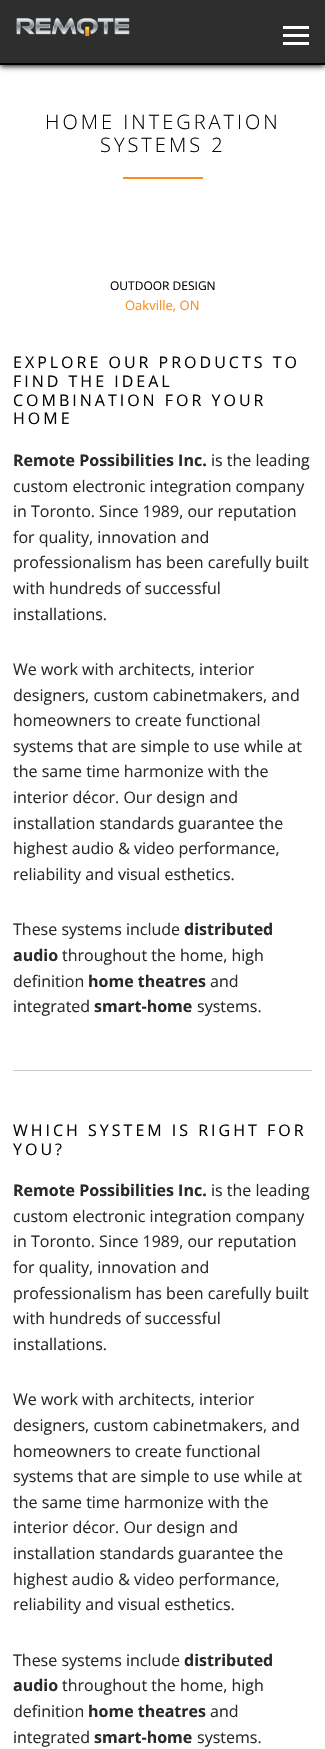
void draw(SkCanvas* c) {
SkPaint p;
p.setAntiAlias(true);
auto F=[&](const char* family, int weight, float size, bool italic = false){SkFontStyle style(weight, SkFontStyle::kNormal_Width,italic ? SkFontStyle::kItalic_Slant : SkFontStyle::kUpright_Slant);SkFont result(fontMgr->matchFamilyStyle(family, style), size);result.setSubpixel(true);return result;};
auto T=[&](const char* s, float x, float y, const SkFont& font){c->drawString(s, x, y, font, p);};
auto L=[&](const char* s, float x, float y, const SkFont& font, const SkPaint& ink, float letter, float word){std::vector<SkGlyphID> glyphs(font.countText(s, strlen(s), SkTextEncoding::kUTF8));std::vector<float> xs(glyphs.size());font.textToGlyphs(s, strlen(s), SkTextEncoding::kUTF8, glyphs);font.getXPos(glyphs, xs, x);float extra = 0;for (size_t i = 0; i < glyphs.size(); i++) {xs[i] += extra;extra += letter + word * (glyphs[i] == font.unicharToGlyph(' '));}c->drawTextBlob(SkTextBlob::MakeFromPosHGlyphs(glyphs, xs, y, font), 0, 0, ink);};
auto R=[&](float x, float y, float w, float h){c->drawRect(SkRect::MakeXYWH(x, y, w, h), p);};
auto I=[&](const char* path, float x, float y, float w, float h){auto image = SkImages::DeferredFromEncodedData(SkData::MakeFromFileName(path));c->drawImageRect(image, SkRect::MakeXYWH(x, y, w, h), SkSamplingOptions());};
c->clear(0xffffffff);
p.setColor(0xff000000);
p.setMaskFilter(SkMaskFilter::MakeBlur(kNormal_SkBlurStyle, 3));
c->drawRect(SkRect::MakeXYWH(0,1,325,65),p);
p.setMaskFilter(nullptr);
p.setColor(0xff2e2e2e);
R(0,0,325,63);
p.setColor(0xff000000);
R(0,63,325,2);
I("1.png",16,17,114,20);
p.setColor(0xffffffff);
R(283,26,26,3);
R(283,34,26,3);
R(283,42,26,3);
auto f1 = F("Open Sans",300,20);
p.setColor(0xff060606);
L("HOME INTEGRATION",45,129,f1,p,3,0);
L("SYSTEMS 2",100,152,f1,p,3,0);
p.setColor(0xfff68f1e);
R(123,177,80,2);
auto f2 = F("Open Sans",400,12);
p.setColor(0xff060606);
T("OUTDOOR DESIGN",110,290,f2);
auto f3 = F("Open Sans",400,13);
p.setColor(0xfff68f1e);
T("Oakville, ON",125,310,f3);
auto f4 = F("Open Sans",400,16);
p.setColor(0xff060606);
L("EXPLORE OUR PRODUCTS TO",13,368,f4,p,3,0);
L("FIND THE IDEAL",13,387,f4,p,3,0);
L("COMBINATION FOR YOUR",13,406,f4,p,3,0);
L("HOME",13,424,f4,p,3,0);
auto f5 = F("Open Sans",700,16);
p.setColor(0xff2a2a2a);
T("Remote Possibilities Inc.",13,466,f5);
T("is the leading",211,466,f4);
T("custom electronic integration company",13,492,f4);
T("in Toronto. Since 1989, our reputation",13,517,f4);
T("for quality, innovation and",13,543,f4);
T("professionalism has been carefully built",13,568,f4);
T("with hundreds of successful",13,594,f4);
T("installations.",13,620,f4);
T("We work with architects, interior",13,675,f4);
T("designers, custom cabinetmakers, and",13,701,f4);
T("homeowners to create functional",13,726,f4);
T("systems that are simple to use while at",13,752,f4);
T("the same time harmonize with the",13,777,f4);
T("interior décor. Our design and",13,803,f4);
T("installation standards guarantee the",13,829,f4);
T("highest audio & video performance,",13,854,f4);
T("reliability and visual esthetics.",13,880,f4);
T("These systems include",13,935,f4);
T("distributed",184,935,f5);
T("audio",13,961,f5);
T("throughout the home, high",62,961,f4);
T("definition",13,987,f4);
T("home theatres",88,987,f5);
T("and",210,987,f4);
T("integrated",13,1012,f4);
T("smart-home",94,1012,f5);
T("systems.",197,1012,f4);
p.setColor(0xffcccccc);
R(13,1070,299,1);
p.setColor(0xff060606);
L("WHICH SYSTEM IS RIGHT FOR",13,1136,f4,p,3,0);
L("YOU?",13,1155,f4,p,3,0);
p.setColor(0xff2a2a2a);
T("Remote Possibilities Inc.",13,1196,f5);
T("is the leading",211,1196,f4);
T("custom electronic integration company",13,1222,f4);
T("in Toronto. Since 1989, our reputation",13,1247,f4);
T("for quality, innovation and",13,1273,f4);
T("professionalism has been carefully built",13,1299,f4);
T("with hundreds of successful",13,1324,f4);
T("installations.",13,1350,f4);
T("We work with architects, interior",13,1405,f4);
T("designers, custom cabinetmakers, and",13,1431,f4);
T("homeowners to create functional",13,1457,f4);
T("systems that are simple to use while at",13,1482,f4);
T("the same time harmonize with the",13,1508,f4);
T("interior décor. Our design and",13,1533,f4);
T("installation standards guarantee the",13,1559,f4);
T("highest audio & video performance,",13,1585,f4);
T("reliability and visual esthetics.",13,1610,f4);
T("These systems include",13,1666,f4);
T("distributed",184,1666,f5);
T("audio",13,1691,f5);
T("throughout the home, high",62,1691,f4);
T("definition",13,1717,f4);
T("home theatres",88,1717,f5);
T("and",210,1717,f4);
T("integrated",13,1743,f4);
T("smart-home",94,1743,f5);
T("systems.",197,1743,f4);
}
